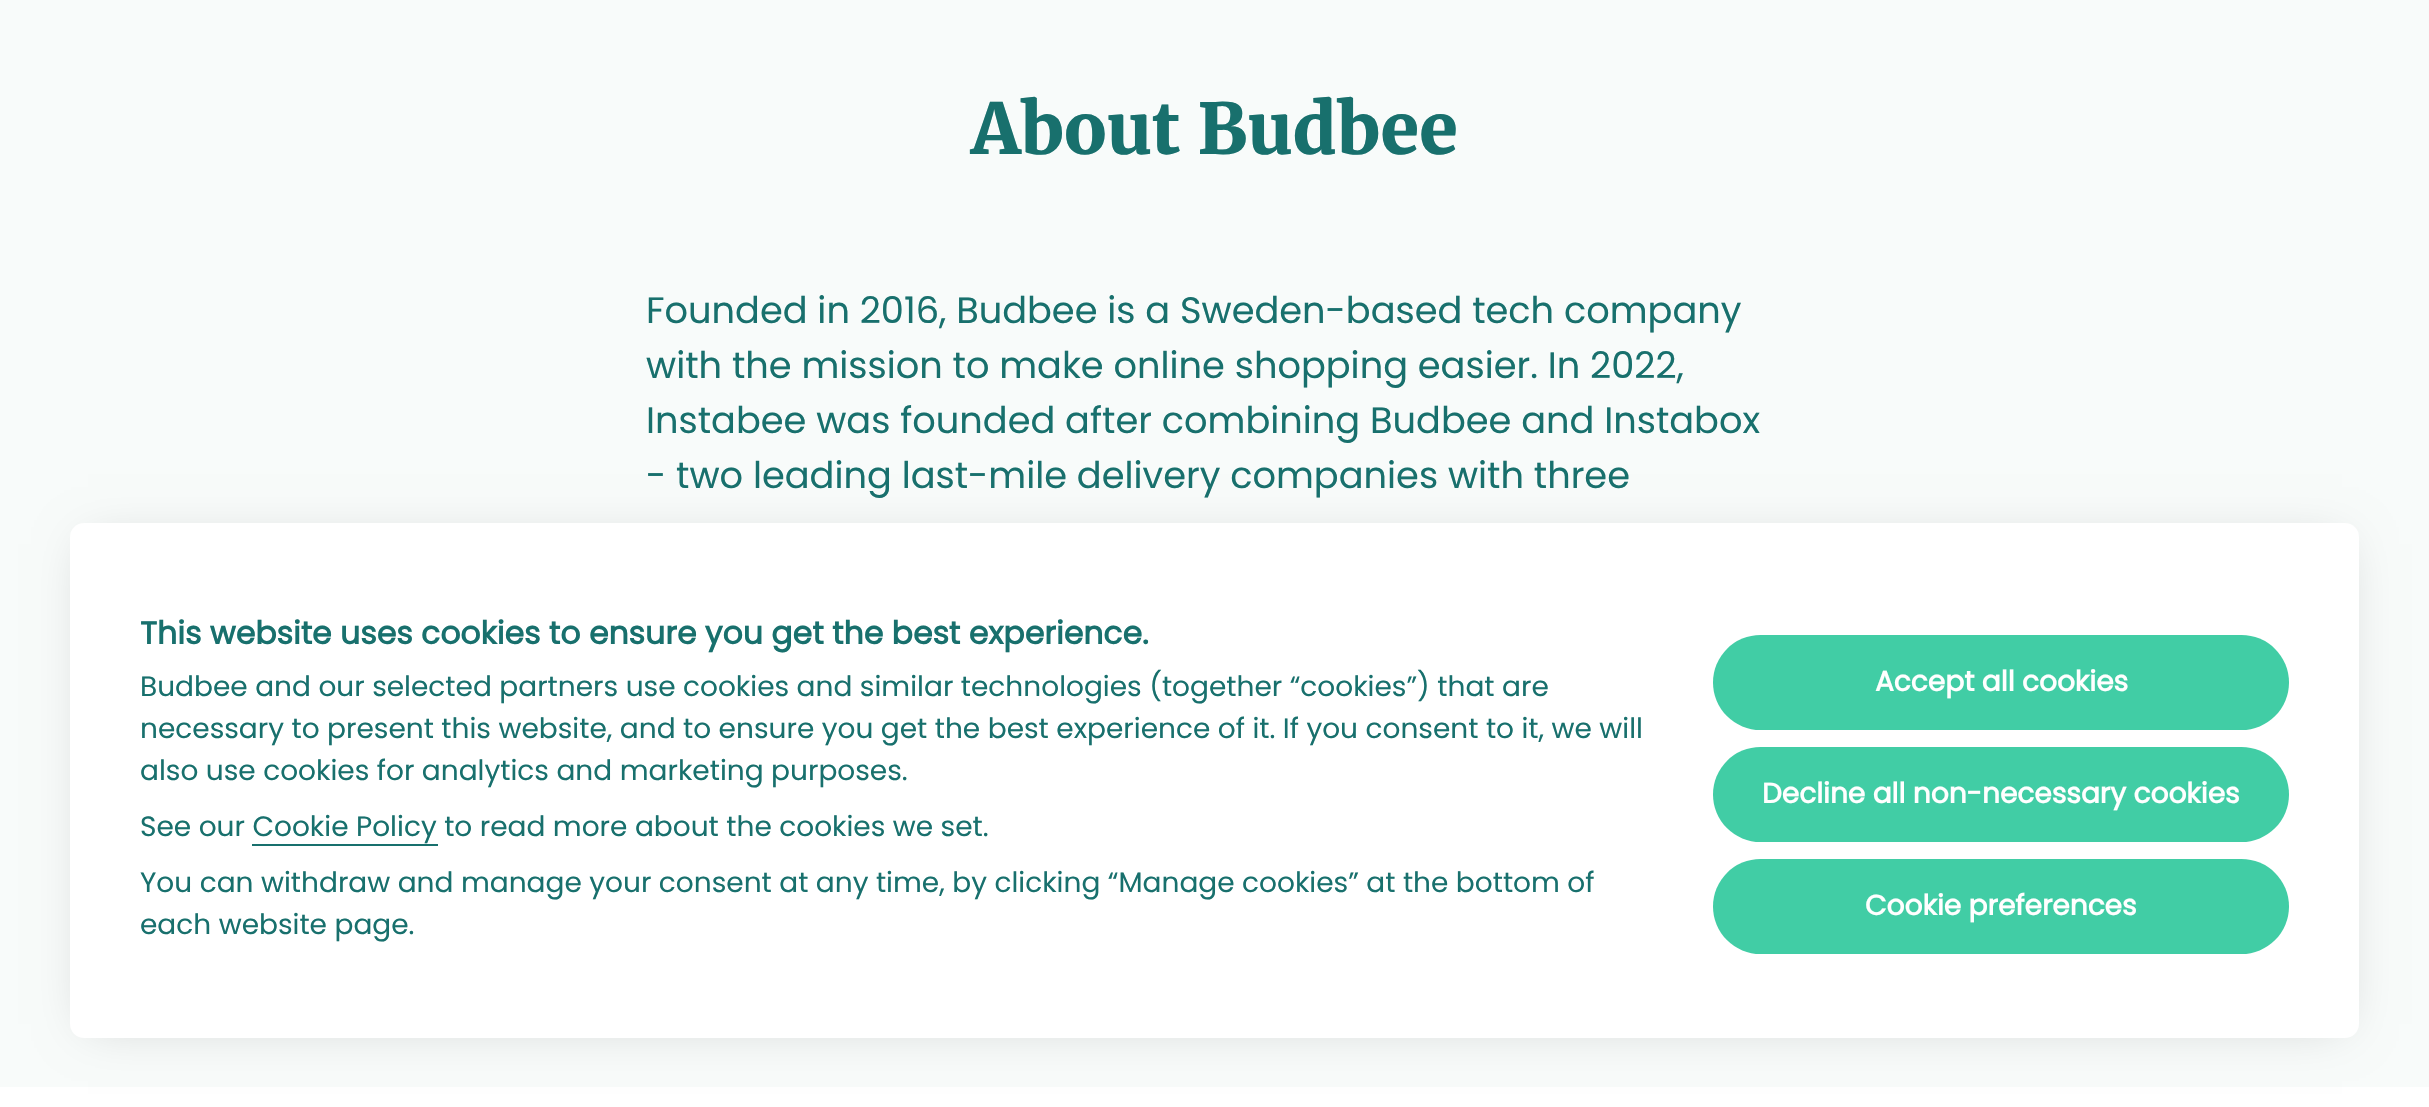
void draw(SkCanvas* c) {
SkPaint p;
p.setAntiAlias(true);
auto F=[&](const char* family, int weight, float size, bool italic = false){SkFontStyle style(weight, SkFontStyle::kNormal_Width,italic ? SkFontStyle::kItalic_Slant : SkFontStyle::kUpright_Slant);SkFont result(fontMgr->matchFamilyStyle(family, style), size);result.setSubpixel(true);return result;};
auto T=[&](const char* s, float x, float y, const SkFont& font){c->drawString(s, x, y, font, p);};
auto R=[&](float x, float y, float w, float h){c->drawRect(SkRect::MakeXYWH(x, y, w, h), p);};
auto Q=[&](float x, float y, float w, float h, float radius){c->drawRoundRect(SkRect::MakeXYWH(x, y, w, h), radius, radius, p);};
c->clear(0xffffffff);
p.setColor(0xfff8fbfa);
R(0,0,2429,1087);
auto f1 = F("Merriweather",900,70);
p.setColor(0xff18706d);
T("About Budbee",971,154,f1);
auto f2 = F("Poppins",400,36.75);
T("Founded in 2016, Budbee is a Sweden-based tech company",646,323,f2);
T("with the mission to make online shopping easier. In 2022,",646,378,f2);
T("Instabee was founded after combining Budbee and Instabox",646,433,f2);
T("- two leading last-mile delivery companies with three",646,488,f2);
p.setColor(0x2e000000);
p.setMaskFilter(SkMaskFilter::MakeBlur(kNormal_SkBlurStyle, 23.5));
c->drawRect(SkRect::MakeXYWH(88,544,2254,480),p);
p.setMaskFilter(nullptr);
p.setColor(0xffffffff);
Q(70,523,2289,515,14);
auto f3 = F("Poppins",700,31.5);
p.setColor(0xff18706d);
T("This website uses cookies to ensure you get the best experience.",140,644,f3);
auto f4 = F("Poppins",400,28);
T("Budbee and our selected partners use cookies and similar technologies (together “cookies”) that are",140,696,f4);
T("necessary to present this website, and to ensure you get the best experience of it. If you consent to it, we will",140,738,f4);
T("also use cookies for analytics and marketing purposes.",140,780,f4);
T("See our Cookie Policy to read more about the cookies we set.",140,836,f4);
R(252,844,186,2);
T("You can withdraw and manage your consent at any time, by clicking “Manage cookies” at the bottom of",140,892,f4);
T("each website page.",140,934,f4);
p.setColor(0xff41cda5);
Q(1713,635,576,95,47.5);
auto f5 = F("Poppins",700,28);
p.setColor(0xffffffff);
T("Accept all cookies",1875,691,f5);
p.setColor(0xff41cda5);
Q(1713,747,576,95,47.5);
p.setColor(0xffffffff);
T("Decline all non-necessary cookies",1762,803,f5);
p.setColor(0xff41cda5);
Q(1713,859,576,95,47.5);
p.setColor(0xffffffff);
T("Cookie preferences",1865,915,f5);
}
